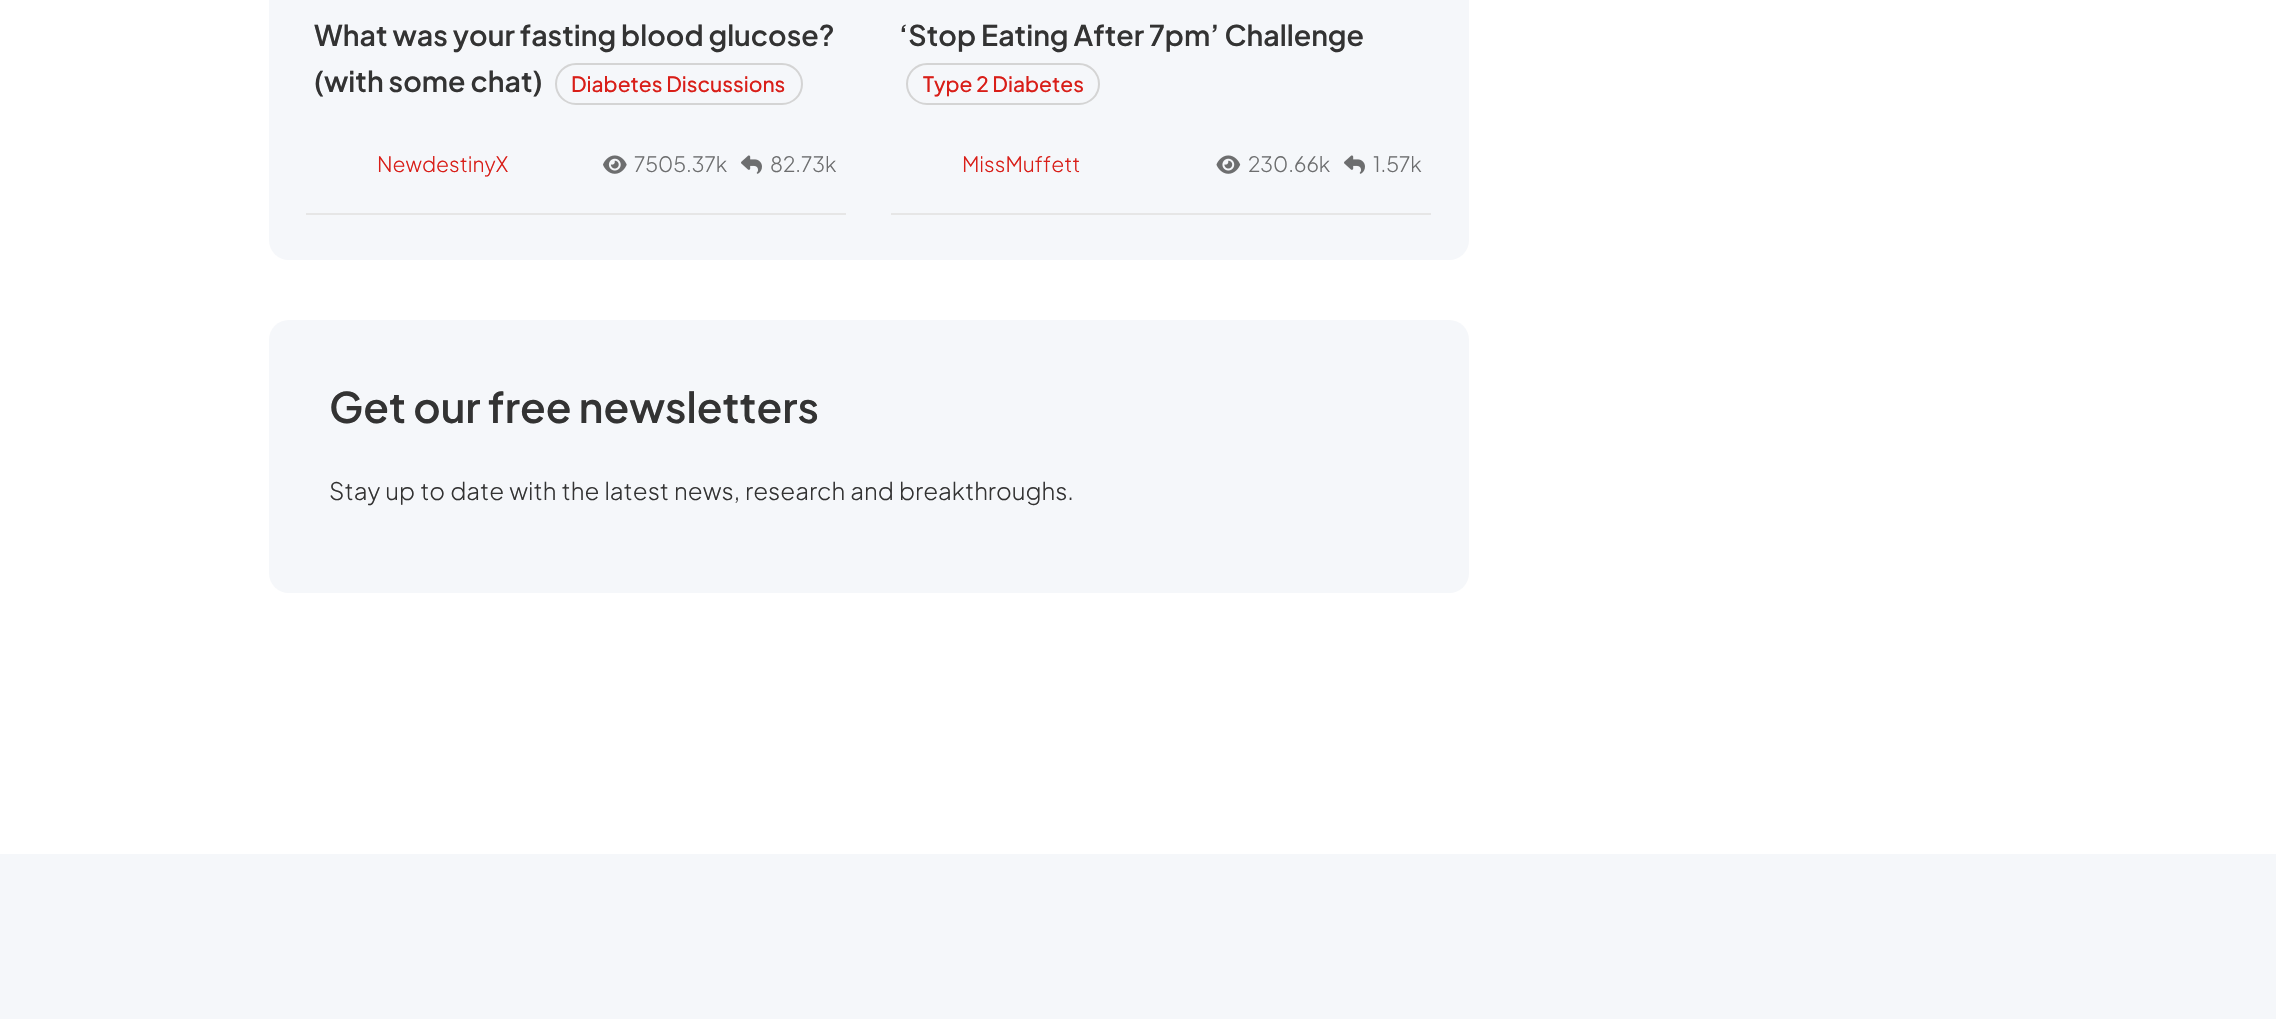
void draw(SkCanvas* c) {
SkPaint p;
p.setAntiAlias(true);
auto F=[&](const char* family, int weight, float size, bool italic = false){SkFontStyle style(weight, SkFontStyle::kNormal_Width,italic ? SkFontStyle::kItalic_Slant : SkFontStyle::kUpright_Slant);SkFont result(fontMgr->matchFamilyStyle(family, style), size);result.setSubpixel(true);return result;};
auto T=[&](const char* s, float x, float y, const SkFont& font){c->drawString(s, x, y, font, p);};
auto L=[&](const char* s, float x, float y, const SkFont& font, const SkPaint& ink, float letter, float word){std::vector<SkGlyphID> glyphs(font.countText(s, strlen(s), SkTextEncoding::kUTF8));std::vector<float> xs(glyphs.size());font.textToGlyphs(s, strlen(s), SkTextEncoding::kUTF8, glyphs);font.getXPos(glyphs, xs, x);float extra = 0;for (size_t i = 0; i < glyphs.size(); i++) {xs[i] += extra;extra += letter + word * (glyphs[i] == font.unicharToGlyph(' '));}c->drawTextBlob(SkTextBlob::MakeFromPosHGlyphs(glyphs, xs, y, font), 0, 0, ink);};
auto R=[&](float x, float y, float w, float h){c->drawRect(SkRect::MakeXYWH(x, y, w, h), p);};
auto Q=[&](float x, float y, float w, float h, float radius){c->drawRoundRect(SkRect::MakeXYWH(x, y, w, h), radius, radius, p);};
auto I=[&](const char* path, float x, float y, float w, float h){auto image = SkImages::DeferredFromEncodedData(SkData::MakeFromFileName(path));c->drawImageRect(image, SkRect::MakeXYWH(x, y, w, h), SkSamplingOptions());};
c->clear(0xffffffff);
p.setColor(0xfff5f7fa);
Q(269,-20,1200,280,20);
p.setColor(0xffe6e6e6);
R(306,213,540,2);
auto f1 = F("Plus Jakarta Sans",600,28.5);
p.setColor(0xff333333);
T("What was your fasting blood glucose?",314,46,f1);
T("(with some chat)",314,92,f1);
p.setStroke(true);
p.setStrokeWidth(2);
p.setColor(0xffd4d4d4);
c->drawRoundRect(SkRect::MakeXYWH(556,64,246,40),20,20,p);
auto f2 = F("Plus Jakarta Sans",500,21);
p.setStroke(false);
p.setColor(0xffd91e18);
T("Diabetes Discussions",571,92,f2);
auto f3 = F("Plus Jakarta Sans",300,21);
T("NewdestinyX",377,172,f3);
I("1.png",603,155,24,19);
p.setColor(0xff6d6e6f);
T("7505.37k",634,172,f3);
I("2.png",741,155,21,19);
T("82.73k",770,172,f3);
p.setColor(0xffe6e6e6);
R(891,213,540,2);
p.setColor(0xff333333);
T("‘Stop Eating After 7pm’ Challenge",899,46,f1);
p.setStroke(true);
p.setColor(0xffd4d4d4);
c->drawRoundRect(SkRect::MakeXYWH(907,64,192,40),20,20,p);
p.setStroke(false);
p.setColor(0xffd91e18);
T("Type 2 Diabetes",923,92,f2);
T("MissMuffett",962,172,f3);
I("3.png",1216,155,25,19);
p.setColor(0xff6d6e6f);
T("230.66k",1248,172,f3);
I("2.png",1344,155,21,19);
T("1.57k",1373,172,f3);
p.setColor(0xfff5f7fa);
Q(269,320,1200,273,20);
auto f4 = F("Plus Jakarta Sans",600,42);
p.setColor(0xff333333);
T("Get our free newsletters",329,423,f4);
auto f5 = F("Plus Jakarta Sans",300,24);
L("Stay up to date with the latest news, research and breakthroughs.",329,500,f5,p,0,1.1);
p.setColor(0xfff5f7fa);
R(0,854,2276,165);
}
